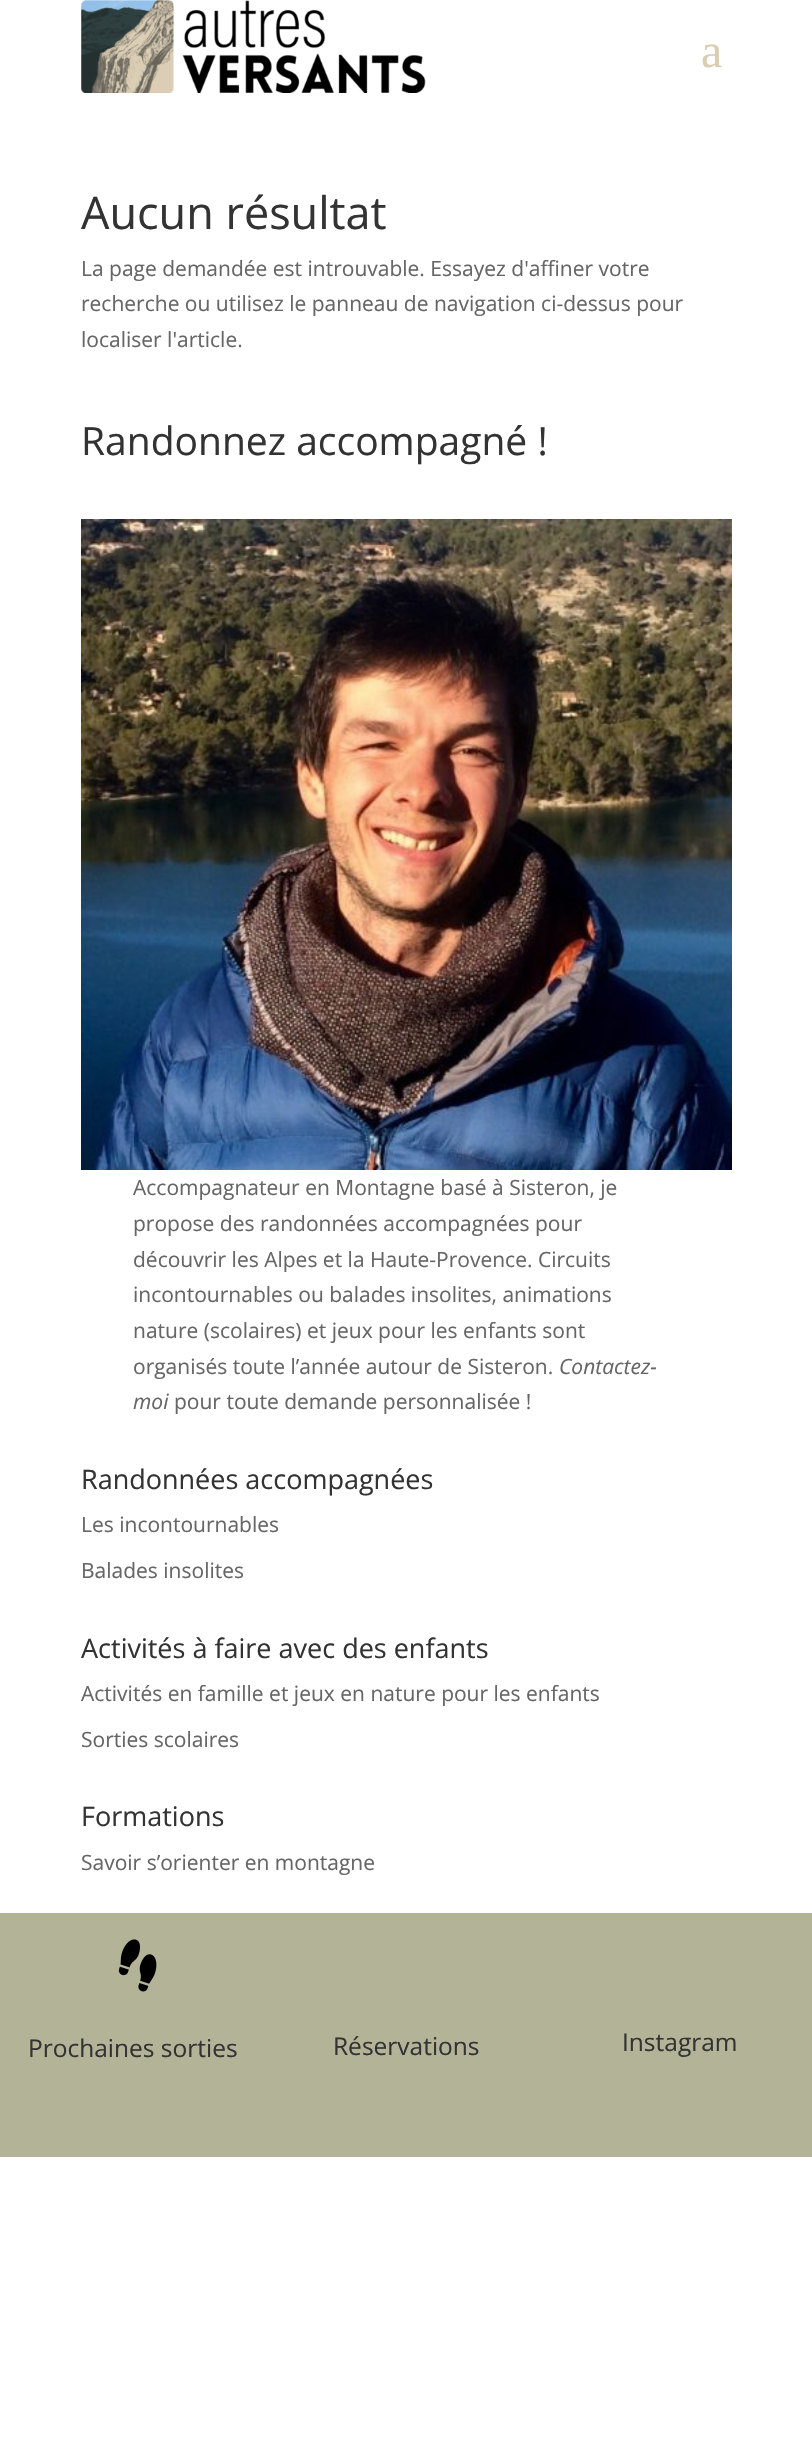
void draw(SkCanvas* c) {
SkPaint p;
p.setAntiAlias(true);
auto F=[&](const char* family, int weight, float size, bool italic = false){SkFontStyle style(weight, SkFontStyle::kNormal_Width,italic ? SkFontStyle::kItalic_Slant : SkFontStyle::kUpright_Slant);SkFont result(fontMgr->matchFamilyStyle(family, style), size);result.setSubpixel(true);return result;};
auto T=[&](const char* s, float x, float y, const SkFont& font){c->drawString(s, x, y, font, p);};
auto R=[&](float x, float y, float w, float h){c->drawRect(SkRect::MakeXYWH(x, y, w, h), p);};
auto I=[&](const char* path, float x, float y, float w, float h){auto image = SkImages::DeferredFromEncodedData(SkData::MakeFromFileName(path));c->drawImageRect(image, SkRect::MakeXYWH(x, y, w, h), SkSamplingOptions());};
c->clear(0xffffffff);
I("1.png",81,0,345,93);
auto f1 = F("Liberation Serif",400,48);
p.setColor(0xffdacdb4);
T("a",701,67,f1);
auto f2 = F("Open Sans",400,45);
p.setColor(0xff333333);
T("Aucun résultat",81,229,f2);
auto f3 = F("Open Sans",400,21);
p.setColor(0xff666666);
T("La page demandée est introuvable. Essayez d'affiner votre",81,276,f3);
T("recherche ou utilisez le panneau de navigation ci-dessus pour",81,311,f3);
T("localiser l'article.",81,347,f3);
auto f4 = F("Open Sans",400,39);
p.setColor(0xff333333);
T("Randonnez accompagné !",81,455,f4);
I("2.png",81,519,651,651);
p.setColor(0xff666666);
T("Accompagnateur en Montagne basé à Sisteron, je",133,1195,f3);
T("propose des randonnées accompagnées pour",133,1231,f3);
T("découvrir les Alpes et la Haute-Provence. Circuits",133,1267,f3);
T("incontournables ou balades insolites, animations",133,1302,f3);
T("nature (scolaires) et jeux pour les enfants sont",133,1338,f3);
T("organisés toute l’année autour de Sisteron.",133,1374,f3);
auto f5 = F("Open Sans",400,21,true);
T("Contactez-",559,1374,f5);
T("moi",133,1409,f5);
T("pour toute demande personnalisée !",174,1409,f3);
auto f6 = F("Open Sans",400,27);
p.setColor(0xff333333);
T("Randonnées accompagnées",81,1489,f6);
p.setColor(0xff666666);
T("Les incontournables",81,1532,f3);
T("Balades insolites",81,1578,f3);
p.setColor(0xff333333);
T("Activités à faire avec des enfants",81,1658,f6);
p.setColor(0xff666666);
T("Activités en famille et jeux en nature pour les enfants",81,1701,f3);
T("Sorties scolaires",81,1747,f3);
p.setColor(0xff333333);
T("Formations",81,1826,f6);
p.setColor(0xff666666);
T("Savoir s’orienter en montagne",81,1870,f3);
p.setColor(0xffb3b397);
R(0,1913,812,244);
I("3.png",118,1939,39,53);
auto f7 = F("Open Sans",400,24.5);
p.setColor(0xff333333);
T("Prochaines sorties",28,2057,f7);
T("Réservations",333,2055,f7);
T("Instagram",622,2051,f7);
}
